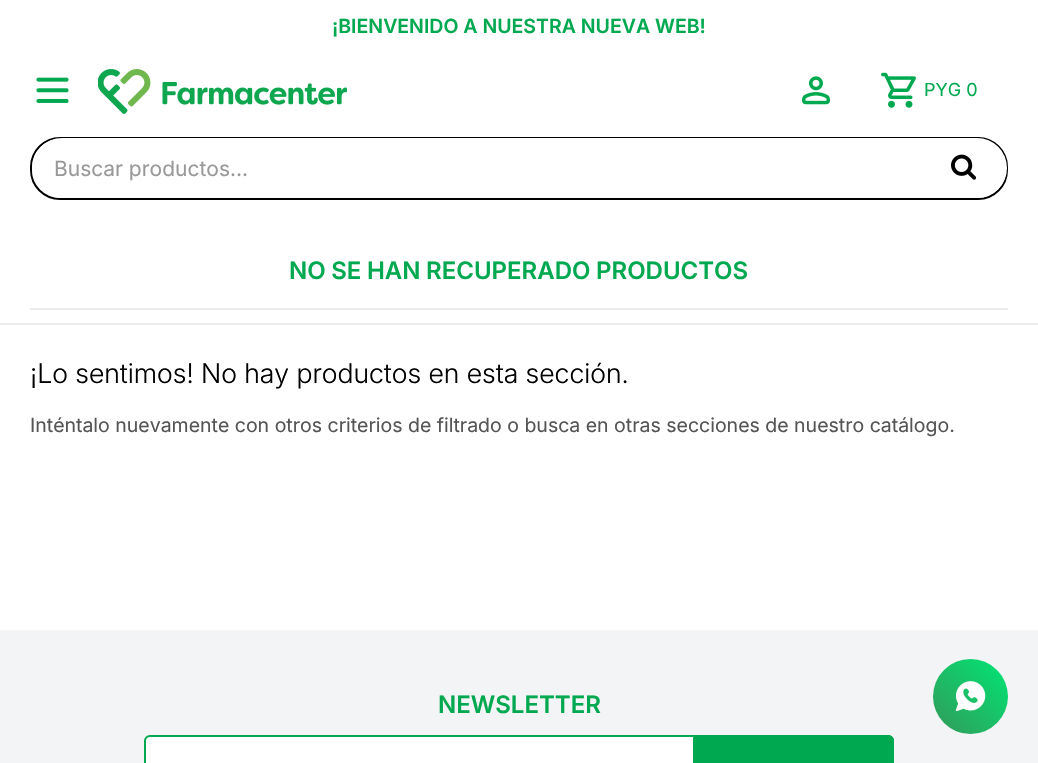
void draw(SkCanvas* c) {
SkPaint p;
p.setAntiAlias(true);
auto F=[&](const char* family, int weight, float size, bool italic = false){SkFontStyle style(weight, SkFontStyle::kNormal_Width,italic ? SkFontStyle::kItalic_Slant : SkFontStyle::kUpright_Slant);SkFont result(fontMgr->matchFamilyStyle(family, style), size);result.setSubpixel(true);return result;};
auto T=[&](const char* s, float x, float y, const SkFont& font){c->drawString(s, x, y, font, p);};
auto L=[&](const char* s, float x, float y, const SkFont& font, const SkPaint& ink, float letter, float word){std::vector<SkGlyphID> glyphs(font.countText(s, strlen(s), SkTextEncoding::kUTF8));std::vector<float> xs(glyphs.size());font.textToGlyphs(s, strlen(s), SkTextEncoding::kUTF8, glyphs);font.getXPos(glyphs, xs, x);float extra = 0;for (size_t i = 0; i < glyphs.size(); i++) {xs[i] += extra;extra += letter + word * (glyphs[i] == font.unicharToGlyph(' '));}c->drawTextBlob(SkTextBlob::MakeFromPosHGlyphs(glyphs, xs, y, font), 0, 0, ink);};
auto R=[&](float x, float y, float w, float h){c->drawRect(SkRect::MakeXYWH(x, y, w, h), p);};
auto Q=[&](float x, float y, float w, float h, float radius){c->drawRoundRect(SkRect::MakeXYWH(x, y, w, h), radius, radius, p);};
auto I=[&](const char* path, float x, float y, float w, float h){auto image = SkImages::DeferredFromEncodedData(SkData::MakeFromFileName(path));c->drawImageRect(image, SkRect::MakeXYWH(x, y, w, h), SkSamplingOptions());};
auto P=[&](const char* data, bool evenOdd = false){SkPath result = *SkParsePath::FromSVGString(data);if (evenOdd) result.setFillType(SkPathFillType::kEvenOdd);return result;};
c->clear(0xffffffff);
auto f1 = F("Inter",600,19.5);
p.setColor(0xff00a950);
T("¡BIENVENIDO A NUESTRA NUEVA WEB!",332,33,f1);
I("1.png",36,77,33,26);
I("2.png",98,69,249,45);
I("3.png",802,76,28,29);
I("4.png",881,72,35,36);
auto f2 = F("Inter",400,18);
T("PYG 0",924,96,f2);
p.setStroke(true);
p.setStrokeWidth(2);
p.setColor(0xff000000);
c->drawRoundRect(SkRect::MakeXYWH(31,138,976,61),29,29,p);
p.setStroke(false);
p.setColor(0xffffffff);
Q(32,138,975,60,30);
auto f3 = F("Inter",400,21);
p.setColor(0xff999999);
T("Buscar productos...",54,176,f3);
I("5.png",951,154,26,26);
p.setColor(0xffededed);
R(30,308,978,2);
auto f4 = F("Inter",600,24);
p.setColor(0xff00a950);
L("NO SE HAN RECUPERADO PRODUCTOS",289,279,f4,p,0,-.5);
p.setColor(0xffededed);
R(0,323,1038,2);
auto f5 = F("Inter",300,27);
p.setColor(0xff000000);
T("¡Lo sentimos! No hay productos en esta sección.",30,383,f5);
auto f6 = F("Inter",400,19.5);
p.setColor(0xff555555);
T("Inténtalo nuevamente con otros criterios de filtrado o busca en otras secciones de nuestro catálogo.",30,432,f6);
p.setColor(0xfff3f4f6);
R(0,630,1038,133);
p.setColor(0xff00a950);
T("NEWSLETTER",438,713,f4);
p.setColor(0xffffffff);
c->drawRoundRect(SkRect::MakeXYWH(145,736,748,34),5,5,p);
p.setStroke(true);
p.setColor(0xff00a950);
c->drawRoundRect(SkRect::MakeXYWH(145,736,748,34),5,5,p);
p.setStroke(false);
c->drawPath(P("M693 735h195c3.5 0 6 2.5 6 6v22c0 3.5-2.5 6-6 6h-195z"),p);
{
const SkColor colors[] = {0xff33995a,0xff01e675};
const float stops[] = {0,1};
const SkPoint ends[] = {{933,734}, {1008,659}};
p.setShader(SkGradientShader::MakeLinear(ends, colors, stops, 2, SkTileMode::kClamp));
p.setAlpha(255);
}
c->drawCircle(970.5,696.5,37.5,p);
I("6.png",955,681,31,31);
}
